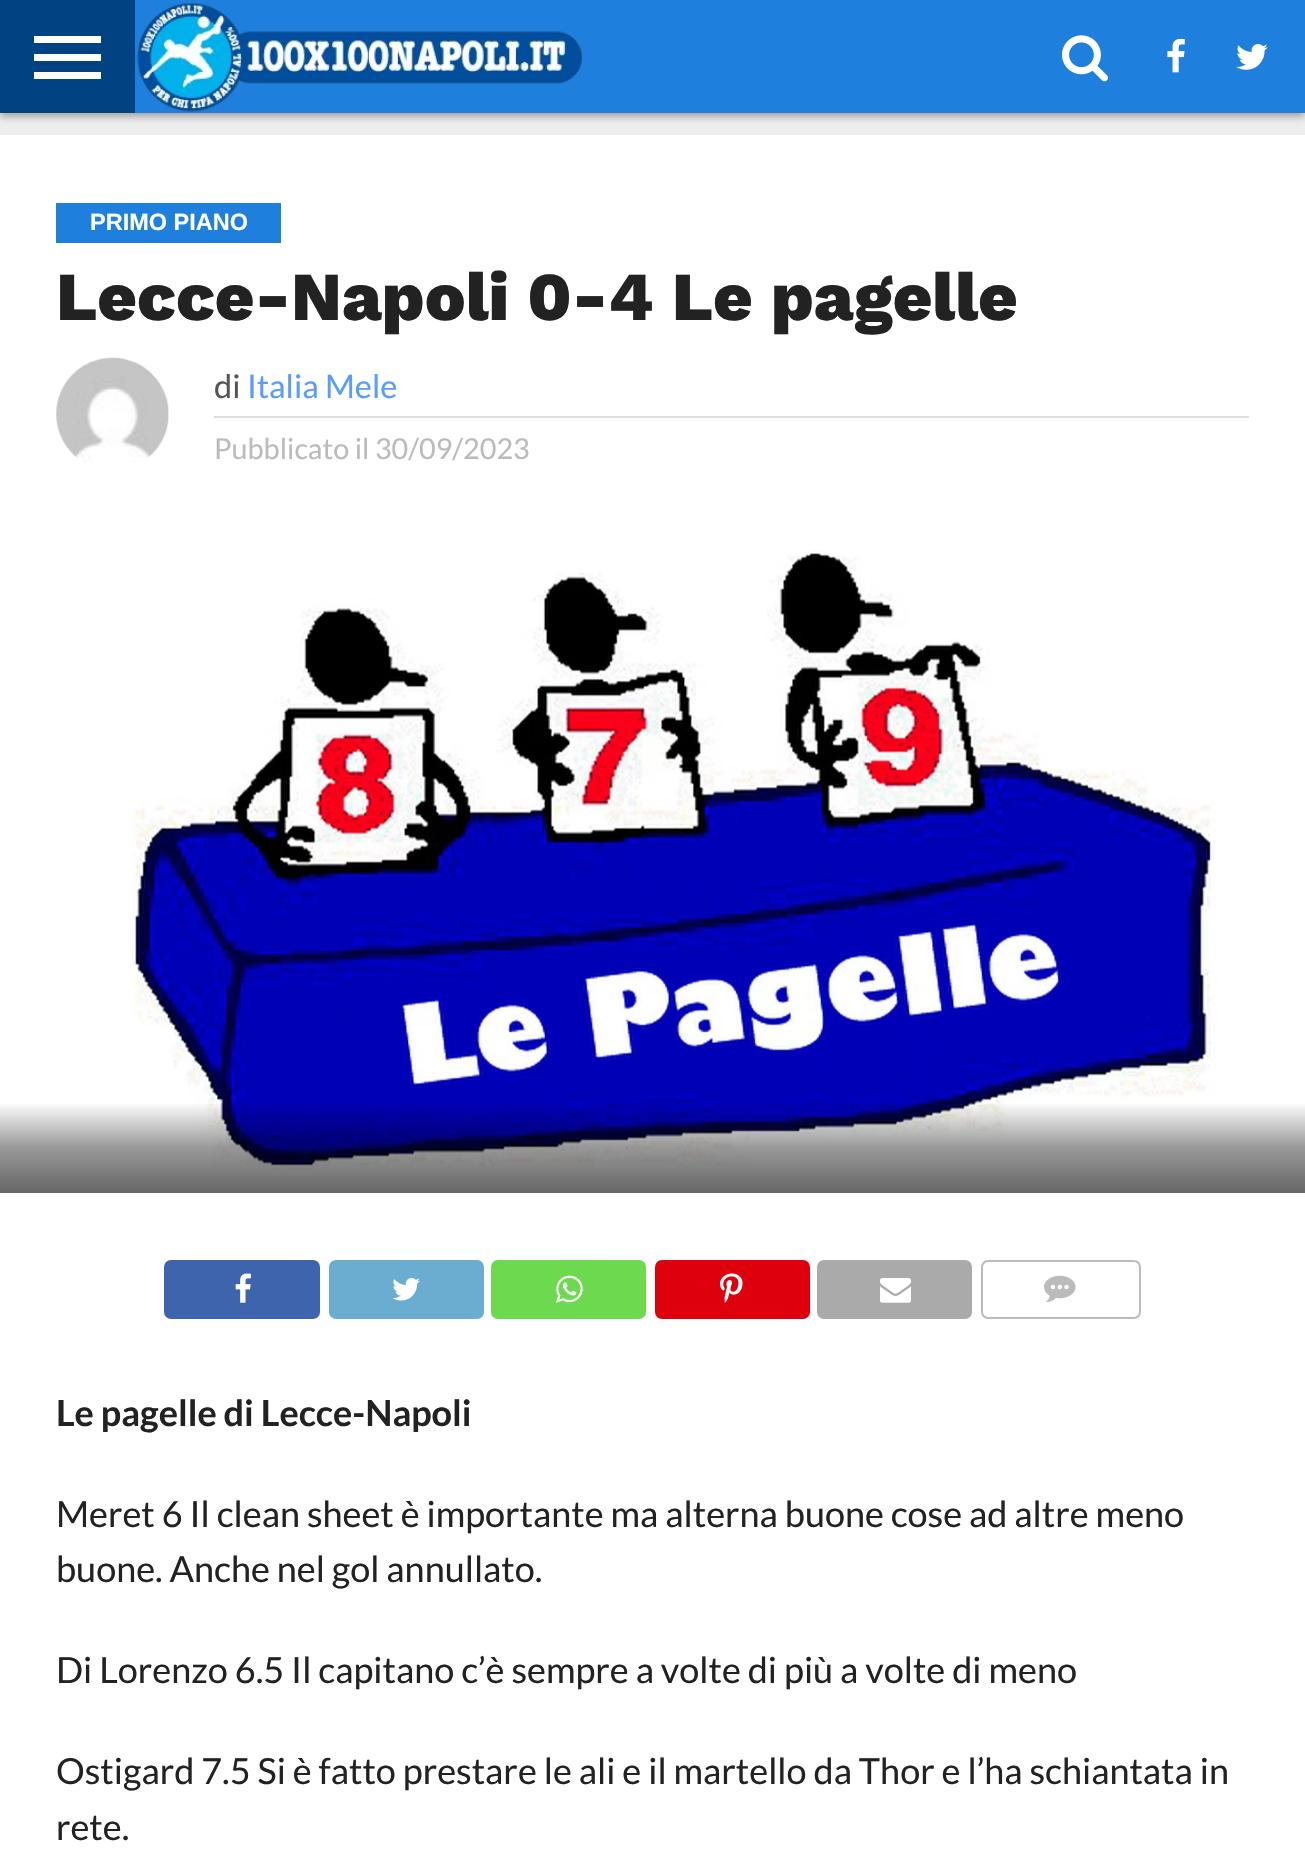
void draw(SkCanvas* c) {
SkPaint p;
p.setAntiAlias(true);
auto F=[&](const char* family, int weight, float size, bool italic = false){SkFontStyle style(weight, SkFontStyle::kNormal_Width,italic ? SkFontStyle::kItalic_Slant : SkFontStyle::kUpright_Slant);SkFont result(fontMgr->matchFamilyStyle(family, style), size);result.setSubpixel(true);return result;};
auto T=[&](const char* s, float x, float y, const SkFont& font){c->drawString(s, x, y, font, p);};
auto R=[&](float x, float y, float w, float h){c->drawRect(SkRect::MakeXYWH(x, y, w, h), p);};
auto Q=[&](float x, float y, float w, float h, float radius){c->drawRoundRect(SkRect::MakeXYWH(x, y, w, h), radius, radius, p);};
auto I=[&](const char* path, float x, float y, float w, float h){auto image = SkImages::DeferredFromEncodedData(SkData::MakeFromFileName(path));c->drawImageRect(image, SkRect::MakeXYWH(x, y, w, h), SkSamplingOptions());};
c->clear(0xffeeeeee);
p.setColor(0x4d000000);
p.setMaskFilter(SkMaskFilter::MakeBlur(kNormal_SkBlurStyle, 3.5));
c->drawRect(SkRect::MakeXYWH(0,5,1305,112),p);
p.setMaskFilter(nullptr);
p.setColor(0xff1e7fdd);
R(135,0,1170,113);
p.setColor(0xff014382);
R(0,0,135,113);
p.setColor(0xffffffff);
R(34,36,67,7);
R(34,54,67,7);
R(34,72,67,7);
I("1.png",137,3,445,109);
I("2.png",1062,35,46,47);
I("3.png",1167,38,18,35);
I("4.png",1236,44,32,26);
R(0,135,1305,1728);
p.setColor(0xff1e7fdd);
R(56,203,225,40);
auto f1 = F("Liberation Sans",700,23.5);
p.setColor(0xffffffff);
T("PRIMO PIANO",90,230,f1);
auto f2 = F("Work Sans",800,68.4);
p.setColor(0xff222222);
T("Lecce-Napoli 0-4 Le pagelle",56,320,f2);
I("5.png",56,357,113,106);
p.setColor(0xffdddddd);
R(214,416,1035,2);
auto f3 = F("Lato",400,32.5);
p.setColor(0xff555555);
T("di",214,398,f3);
p.setColor(0xff599bff);
T("Italia Mele",247,398,f3);
auto f4 = F("Lato",400,28.75);
p.setColor(0xffbbbbbb);
T("Pubblicato il 30/09/2023",214,459,f4);
I("6.png",131,550,1085,619);
{
const SkColor colors[] = {0x00000000,0x66000000,0x99000000};
const float stops[] = {0,.5,1};
const SkPoint ends[] = {{653,1102}, {653,1193}};
p.setShader(SkGradientShader::MakeLinear(ends, colors, stops, 3, SkTileMode::kClamp));
p.setAlpha(255);
}
R(0,1104,1305,89);
p.setShader(nullptr);
p.setColor(0xff3e64ad);
Q(164,1260,156,59,7);
I("7.png",235,1273,16,30);
p.setColor(0xff6aadd1);
Q(329,1260,155,59,7);
I("8.png",392,1278,28,23);
p.setColor(0xff6cd94e);
Q(491,1260,155,59,7);
I("9.png",556,1275,27,28);
p.setColor(0xffde010d);
Q(655,1260,155,59,7);
I("10.png",720,1273,23,30);
p.setColor(0xffaaaaaa);
Q(817,1260,155,59,7);
I("11.png",880,1278,31,25);
p.setStroke(true);
p.setStrokeWidth(2);
p.setColor(0xffbbbbbb);
c->drawRoundRect(SkRect::MakeXYWH(982,1261,158,57),6,6,p);
I("12.png",1044,1275,32,28);
auto f5 = F("Lato",700,36);
p.setStroke(false);
p.setColor(0xff222222);
T("Le pagelle di Lecce-Napoli",56,1426,f5);
auto f6 = F("Lato",400,36);
T("Meret 6 Il clean sheet è importante ma alterna buone cose ad altre meno",56,1527,f6);
T("buone. Anche nel gol annullato.",56,1582,f6);
T("Di Lorenzo 6.5 Il capitano c’è sempre a volte di più a volte di meno",56,1683,f6);
T("Ostigard 7.5 Si è fatto prestare le ali e il martello da Thor e l’ha schiantata in",56,1784,f6);
T("rete.",56,1840,f6);
}
